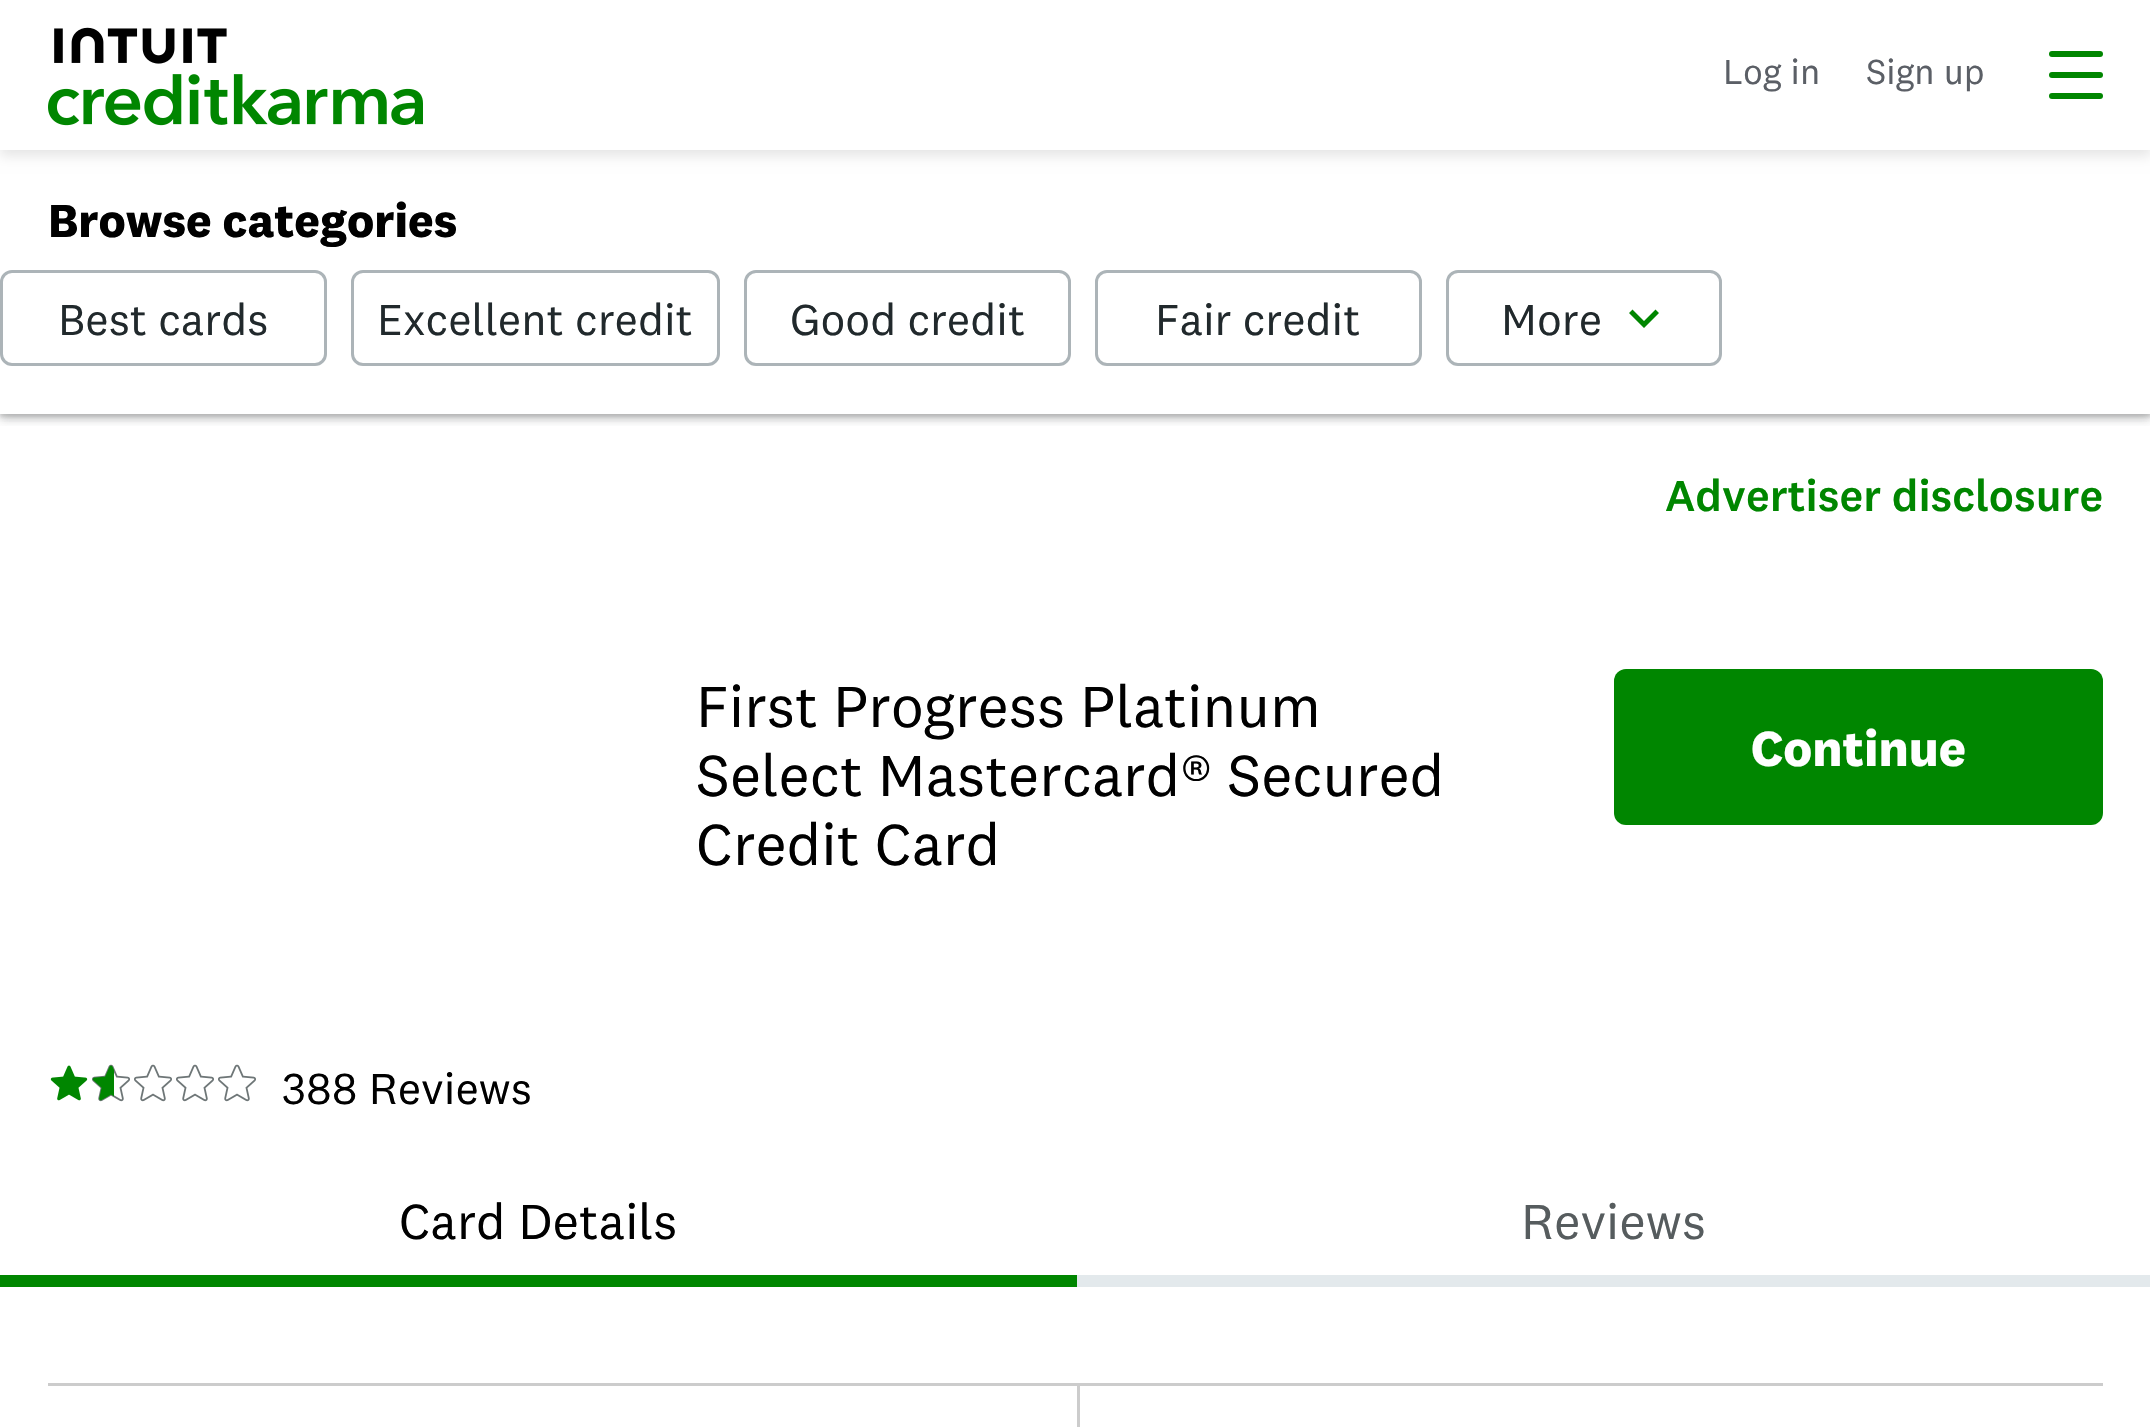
void draw(SkCanvas* c) {
SkPaint p;
p.setAntiAlias(true);
auto F=[&](const char* family, int weight, float size, bool italic = false){SkFontStyle style(weight, SkFontStyle::kNormal_Width,italic ? SkFontStyle::kItalic_Slant : SkFontStyle::kUpright_Slant);SkFont result(fontMgr->matchFamilyStyle(family, style), size);result.setSubpixel(true);return result;};
auto T=[&](const char* s, float x, float y, const SkFont& font){c->drawString(s, x, y, font, p);};
auto R=[&](float x, float y, float w, float h){c->drawRect(SkRect::MakeXYWH(x, y, w, h), p);};
auto Q=[&](float x, float y, float w, float h, float radius){c->drawRoundRect(SkRect::MakeXYWH(x, y, w, h), radius, radius, p);};
auto I=[&](const char* path, float x, float y, float w, float h){auto image = SkImages::DeferredFromEncodedData(SkData::MakeFromFileName(path));c->drawImageRect(image, SkRect::MakeXYWH(x, y, w, h), SkSamplingOptions());};
auto P=[&](const char* data, bool evenOdd = false){SkPath result = *SkParsePath::FromSVGString(data);if (evenOdd) result.setFillType(SkPathFillType::kEvenOdd);return result;};
c->clear(0xffffffff);
p.setColor(0x1a000000);
p.setMaskFilter(SkMaskFilter::MakeBlur(kNormal_SkBlurStyle, 6));
c->drawRect(SkRect::MakeXYWH(0,6,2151,150),p);
p.setMaskFilter(nullptr);
c->save();
c->clipRect(SkRect::MakeXYWH(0,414,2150,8));
p.setColor(0x142a2c2e);
p.setMaskFilter(SkMaskFilter::MakeBlur(kNormal_SkBlurStyle, 7.5));
c->drawRect(SkRect::MakeXYWH(0,147,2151,270),p);
p.setMaskFilter(nullptr);
c->restore();
c->save();
c->clipRect(SkRect::MakeXYWH(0,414,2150,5));
p.setColor(0x242a2c2e);
p.setMaskFilter(SkMaskFilter::MakeBlur(kNormal_SkBlurStyle, 1.5));
c->drawRect(SkRect::MakeXYWH(0,147,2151,270),p);
p.setMaskFilter(nullptr);
c->restore();
c->save();
c->clipRect(SkRect::MakeXYWH(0,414,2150,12));
p.setColor(0x332a2c2e);
p.setMaskFilter(SkMaskFilter::MakeBlur(kNormal_SkBlurStyle, 4.5));
c->drawRect(SkRect::MakeXYWH(0,150,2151,270),p);
p.setMaskFilter(nullptr);
c->restore();
p.setColor(0xffffffff);
R(0,0,2150,150);
I("1.png",48,27,375,99);
auto f1 = F("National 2",400,36);
p.setColor(0xff5b5f66);
T("Log in",1723,84,f1);
T("Sign up",1866,84,f1);
p.setColor(0xff008600);
Q(2049,72,54,6,3);
Q(2049,51,54,6,3);
Q(2049,93,54,6,3);
auto f2 = F("National 2",700,48);
p.setColor(0xff000000);
T("Browse categories",48,237,f2);
p.setStroke(true);
p.setStrokeWidth(3);
p.setColor(0xffacb4b8);
c->drawRoundRect(SkRect::MakeXYWH(1.5,271.5,324,93),10.5,10.5,p);
auto f3 = F("National 2",400,45);
p.setStroke(false);
p.setColor(0xff21292c);
T("Best cards",58,335,f3);
p.setStroke(true);
p.setColor(0xffacb4b8);
c->drawRoundRect(SkRect::MakeXYWH(352.5,271.5,366,93),10.5,10.5,p);
p.setStroke(false);
p.setColor(0xff21292c);
T("Excellent credit",377,335,f3);
p.setStroke(true);
p.setColor(0xffacb4b8);
c->drawRoundRect(SkRect::MakeXYWH(745.5,271.5,324,93),10.5,10.5,p);
p.setStroke(false);
p.setColor(0xff21292c);
T("Good credit",790,335,f3);
p.setStroke(true);
p.setColor(0xffacb4b8);
c->drawRoundRect(SkRect::MakeXYWH(1096.5,271.5,324,93),10.5,10.5,p);
p.setStroke(false);
p.setColor(0xff21292c);
T("Fair credit",1155,335,f3);
p.setStroke(true);
p.setColor(0xffacb4b8);
c->drawRoundRect(SkRect::MakeXYWH(1447.5,271.5,273,93),10.5,10.5,p);
p.setStroke(false);
p.setColor(0xff21292c);
T("More",1501,335,f3);
p.setColor(0xff008600);
c->drawPath(P("M1632.5 309.5l11.5 11.5l11.5-11.5l3.5 3.5l-15 15l-15-15z"),p);
auto f4 = F("National 2",500,45);
T("Advertiser disclosure",1665,511,f4);
auto f5 = F("National 2",400,60);
p.setColor(0xff000000);
T("First Progress Platinum",696,727,f5);
T("Select Mastercard® Secured",696,796,f5);
T("Credit Card",696,865,f5);
p.setColor(0xff008600);
Q(1614,669,489,156,12);
auto f6 = F("National 2",700,51);
p.setColor(0xffffffff);
T("Continue",1751,766,f6);
I("2.png",50,1065,38,36);
I("3.png",92,1064,38,38);
I("4.png",92,1065,22,36);
I("3.png",134,1064,38,38);
I("3.png",176,1064,38,38);
I("3.png",218,1064,38,38);
p.setColor(0xff000000);
T("388 Reviews",282,1104,f3);
auto f7 = F("National 2",400,51);
T("Card Details",399,1239,f7);
p.setColor(0xff565c5e);
T("Reviews",1521,1239,f7);
p.setColor(0xff008600);
R(0,1275,1077,12);
p.setColor(0xffe3e9ec);
R(1077,1275,1073,12);
p.setColor(0xffcccccc);
R(48,1383,2055,3);
R(1077,1386,3,41);
}
